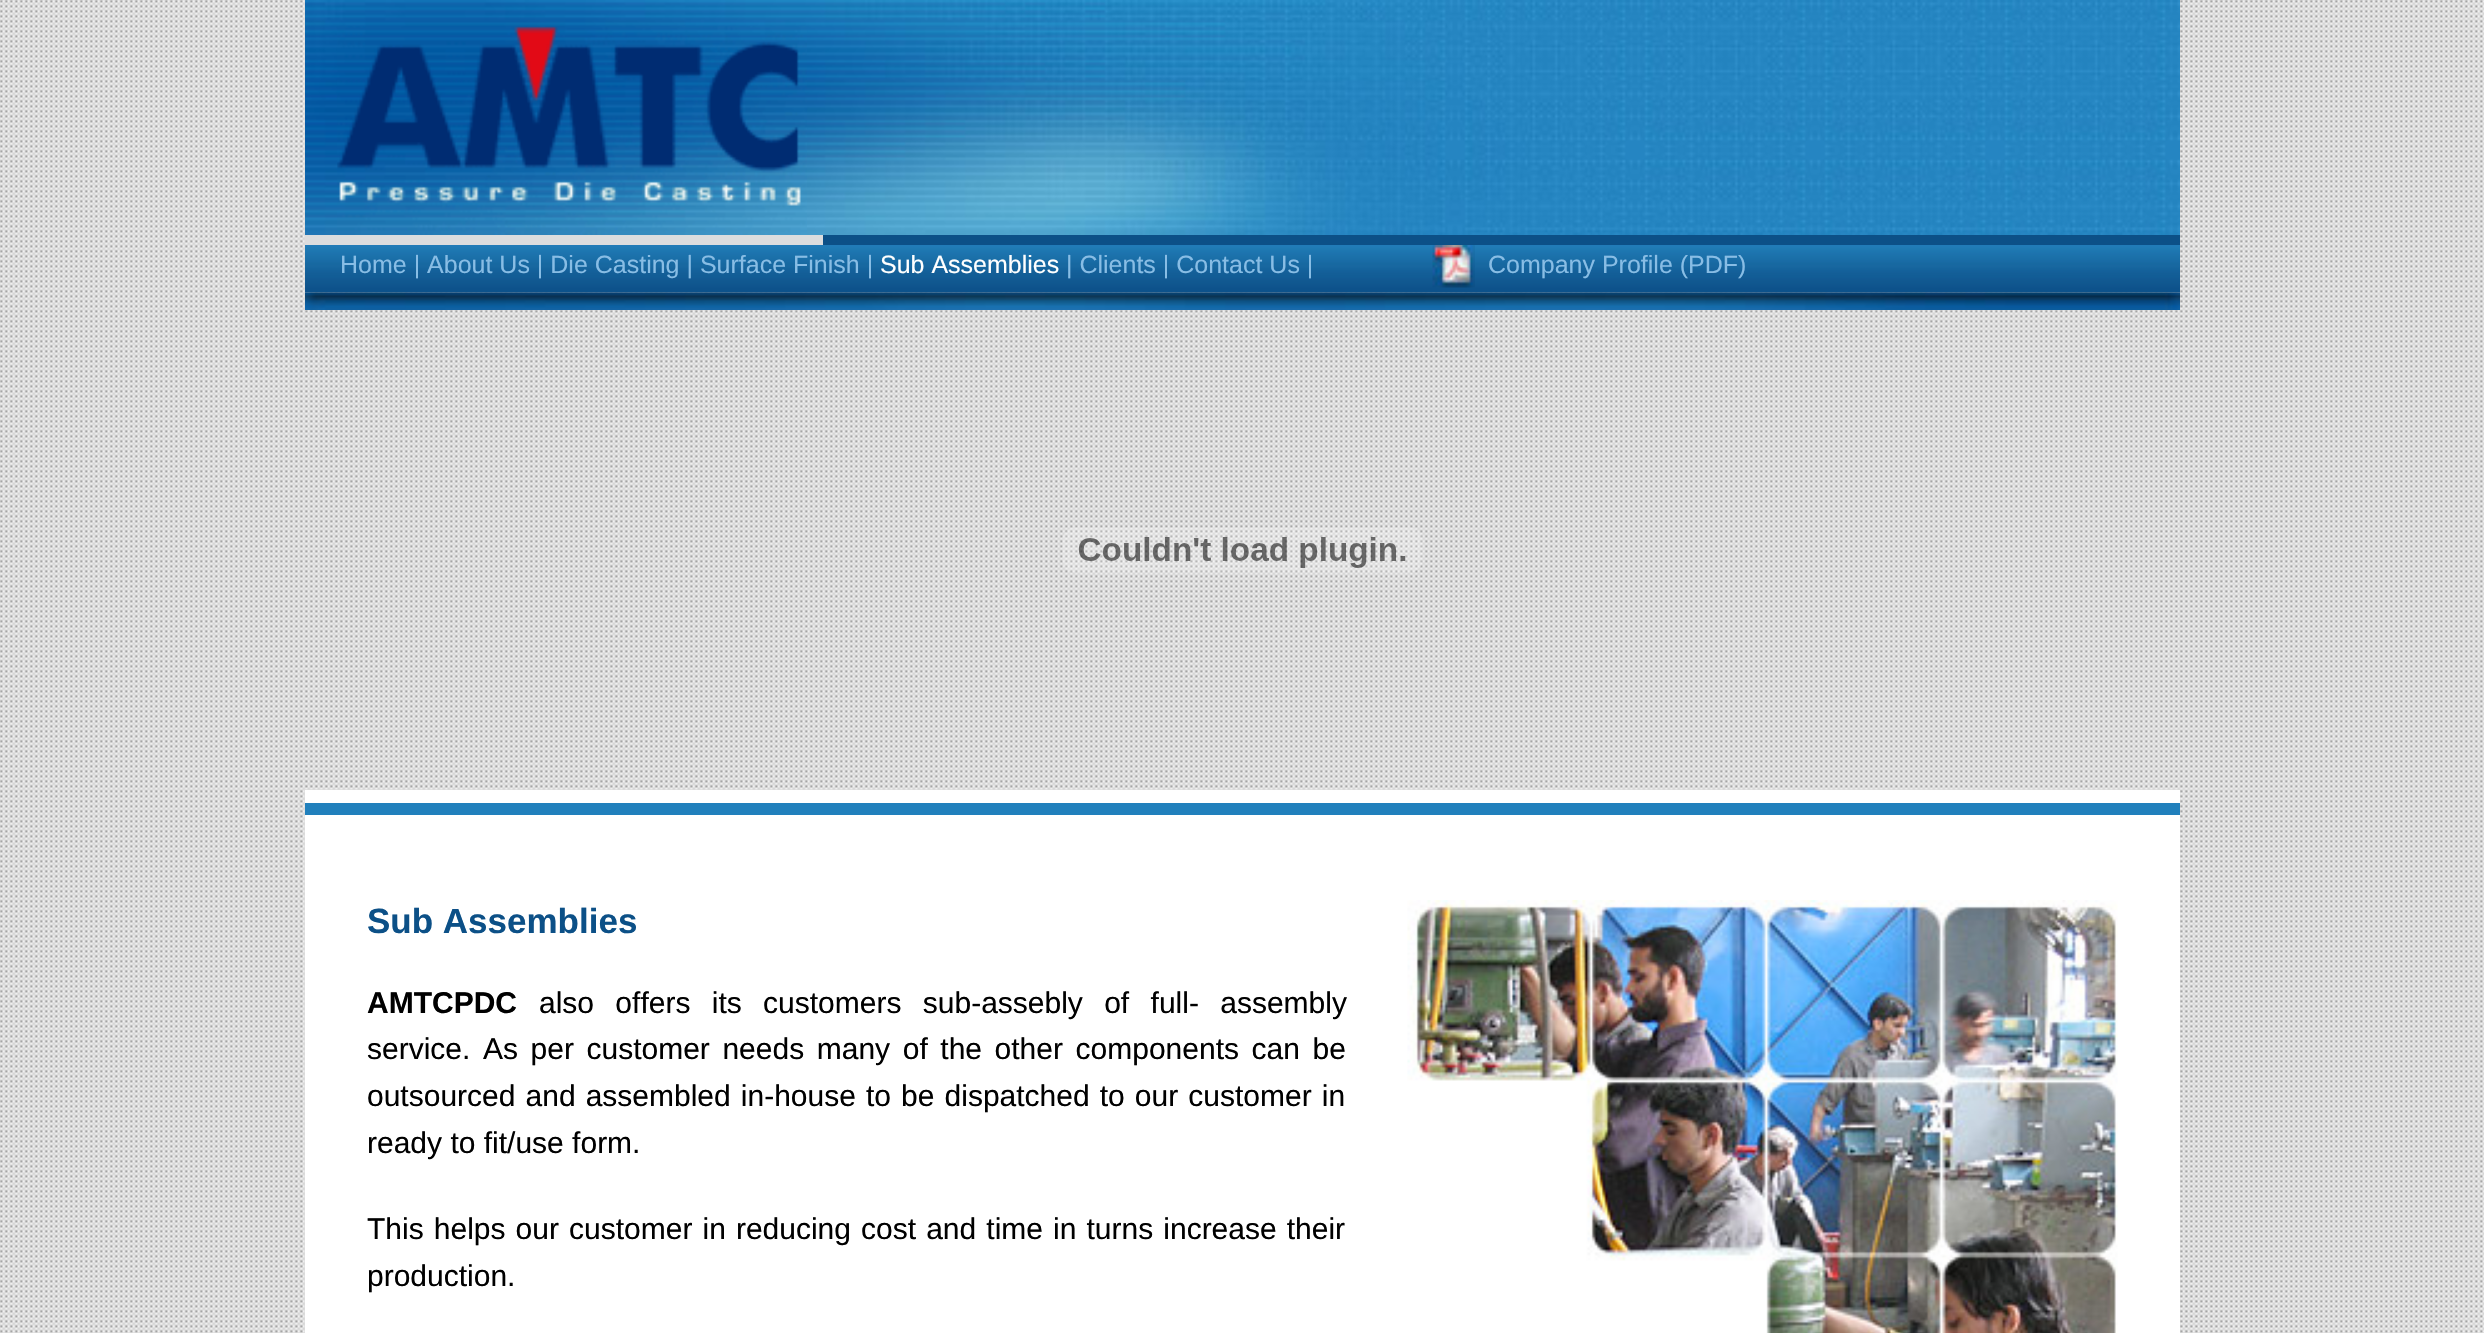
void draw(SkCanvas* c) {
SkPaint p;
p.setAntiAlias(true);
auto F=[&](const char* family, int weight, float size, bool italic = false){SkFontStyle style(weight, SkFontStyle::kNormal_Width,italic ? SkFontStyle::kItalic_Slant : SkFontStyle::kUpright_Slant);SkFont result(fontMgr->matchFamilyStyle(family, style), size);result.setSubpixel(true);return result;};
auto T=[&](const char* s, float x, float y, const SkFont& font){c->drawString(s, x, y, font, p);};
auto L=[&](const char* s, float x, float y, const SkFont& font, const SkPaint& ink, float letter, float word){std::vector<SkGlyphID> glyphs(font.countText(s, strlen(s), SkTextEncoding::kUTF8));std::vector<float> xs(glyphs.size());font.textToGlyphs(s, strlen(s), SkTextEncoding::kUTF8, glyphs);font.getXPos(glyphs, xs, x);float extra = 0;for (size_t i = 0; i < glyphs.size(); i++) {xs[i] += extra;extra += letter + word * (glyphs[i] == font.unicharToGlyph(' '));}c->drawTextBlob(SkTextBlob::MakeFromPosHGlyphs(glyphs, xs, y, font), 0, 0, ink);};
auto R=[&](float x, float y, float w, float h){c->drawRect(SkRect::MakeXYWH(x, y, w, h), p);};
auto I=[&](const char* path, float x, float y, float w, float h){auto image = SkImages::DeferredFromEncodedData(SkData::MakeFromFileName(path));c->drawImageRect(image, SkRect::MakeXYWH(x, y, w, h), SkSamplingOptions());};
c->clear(0xffffffff);
I("1.png",0,0,2484,1333);
I("2.png",305,0,1875,235);
I("3.png",337,26,470,209);
p.setColor(0xffdcddde);
R(305,235,518,10);
p.setColor(0xff0c5087);
R(823,235,1357,10);
I("4.png",305,245,1875,48);
auto f1 = F("Liberation Sans",400,25);
p.setColor(0xff88bde5);
T("Home | About Us | Die Casting | Surface Finish |",340,273,f1);
p.setColor(0xffffffff);
T("Sub Assemblies",880,273,f1);
p.setColor(0xff88bde5);
T("| Clients | Contact Us |",1066,273,f1);
I("5.png",1432,245,43,43);
T("Company Profile (PDF)",1488,273,f1);
I("6.png",305,292,1875,18);
I("7.png",1062,527,361,46);
p.setColor(0xffffffff);
R(305,790,1875,13);
p.setColor(0xff2180bc);
R(305,803,1875,12);
p.setColor(0xffffffff);
R(305,815,1875,518);
auto f2 = F("Liberation Sans",700,35);
p.setColor(0xff0c5087);
T("Sub Assemblies",367,933,f2);
auto f3 = F("Liberation Sans",700,30);
p.setColor(0xff000000);
T("AMTCPDC",367,1013,f3);
auto f4 = F("Liberation Sans",400,30);
L("also offers its customers sub-assebly of full- assembly",539,1013,f4,p,0,13);
L("service. As per customer needs many of the other components can be",367,1059,f4,p,0,4.25);
L("outsourced and assembled in-house to be dispatched to our customer in",367,1106,f4,p,0,1.75);
T("ready to fit/use form.",367,1153,f4);
L("This helps our customer in reducing cost and time in turns increase their",367,1239,f4,p,0,1.75);
T("production.",367,1286,f4);
I("8.png",1407,900,711,433);
}
